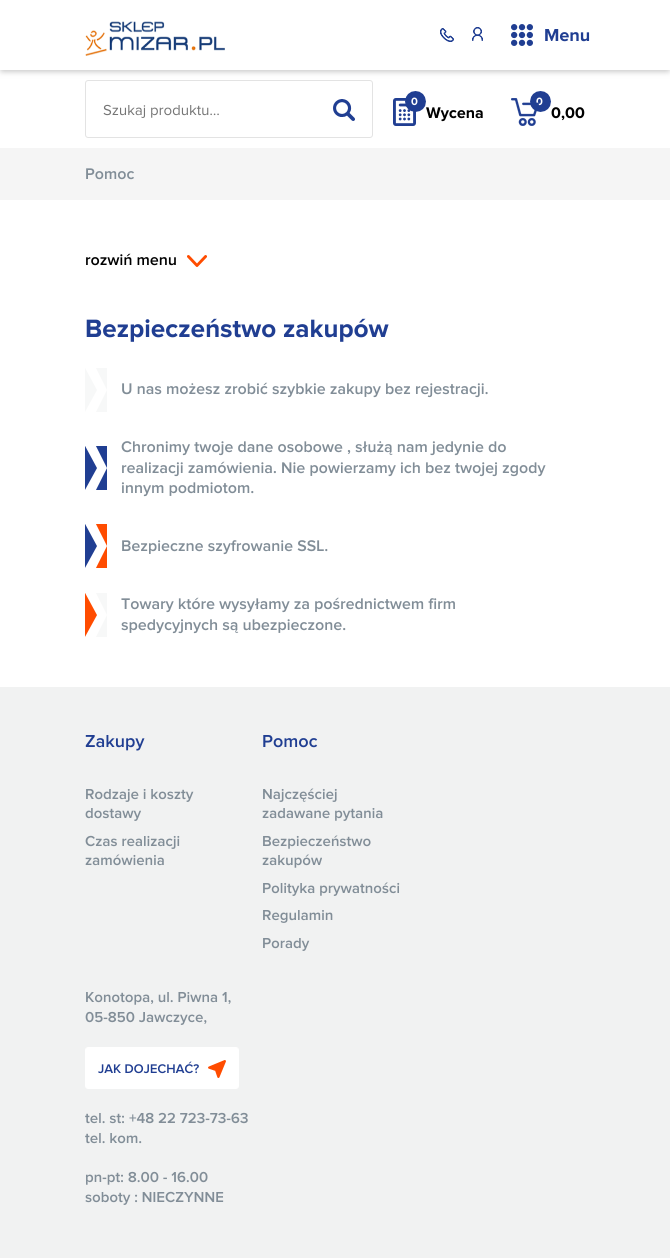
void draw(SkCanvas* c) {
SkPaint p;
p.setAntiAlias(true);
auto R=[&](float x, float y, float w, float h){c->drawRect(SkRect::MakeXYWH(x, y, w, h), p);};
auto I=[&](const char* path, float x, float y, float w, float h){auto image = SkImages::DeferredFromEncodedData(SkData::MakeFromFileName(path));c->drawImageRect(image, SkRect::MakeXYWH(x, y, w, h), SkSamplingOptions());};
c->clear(0xffffffff);
p.setStroke(true);
p.setStrokeWidth(1);
p.setColor(0xffe3e3e3);
c->drawRoundRect(SkRect::MakeXYWH(85.5,80.5,287,57),2.5,2.5,p);
p.setStroke(false);
p.setColor(0x33000000);
p.setMaskFilter(SkMaskFilter::MakeBlur(kNormal_SkBlurStyle, 2.5));
c->drawRect(SkRect::MakeXYWH(0,2,670,70),p);
p.setMaskFilter(nullptr);
p.setColor(0xffffffff);
R(0,0,670,70);
I("1.png",85,21,140,35);
I("2.png",511,24,22,22);
I("3.png",545,29,45,13);
I("4.png",103,104,116,14);
I("5.png",333,99,22,22);
I("6.png",440,28,14,14);
I("7.png",472,27,11,14);
I("9.png",393,98,23,28);
p.setColor(0xff203e92);
c->drawCircle(415.5,101.5,10.5,p);
I("8.png",411,97,7,9);
I("10.png",426,107,57,15);
c->drawCircle(540.5,101.5,10.5,p);
I("8.png",536,97,7,9);
I("11.png",511,98,28,28);
I("12.png",551,107,34,14);
p.setColor(0xfff5f5f5);
R(0,148,670,52);
I("13.png",86,168,48,12);
I("14.png",86,253,90,13);
I("15.png",187,255,20,12);
I("16.png",86,318,303,24);
I("17.png",85,368,22,44);
I("18.png",122,382,366,16);
I("19.png",85,446,22,44);
I("20.png",121,441,385,15);
I("21.png",122,461,424,16);
I("22.png",121,482,133,15);
I("23.png",85,524,22,44);
I("24.png",122,540,206,15);
I("25.png",85,593,22,44);
I("26.png",121,597,334,16);
I("27.png",121,619,225,15);
p.setColor(0xfff1f2f2);
R(0,687,670,571);
I("28.png",85,735,60,16);
I("29.png",86,789,108,13);
I("30.png",85,808,56,13);
I("31.png",85,835,95,14);
I("32.png",85,854,79,12);
I("33.png",263,735,55,13);
I("34.png",263,788,74,14);
I("35.png",262,808,121,13);
I("36.png",263,835,108,14);
I("37.png",262,854,60,14);
I("38.png",263,882,137,14);
I("39.png",263,910,70,13);
I("40.png",263,938,47,13);
I("41.png",86,992,145,13);
I("42.png",85,1011,122,14);
p.setColor(0xffffffff);
c->drawRoundRect(SkRect::MakeXYWH(85.5,1047.5,153,41),2.5,2.5,p);
p.setStroke(true);
c->drawRoundRect(SkRect::MakeXYWH(85.5,1047.5,153,41),2.5,2.5,p);
I("43.png",98,1061,101,13);
I("44.png",208,1060,18,18);
I("45.png",85,1113,39,11);
I("46.png",129,1112,119,12);
I("47.png",85,1133,57,11);
I("48.png",86,1172,37,13);
I("49.png",128,1171,80,12);
I("50.png",85,1191,139,14);
}
